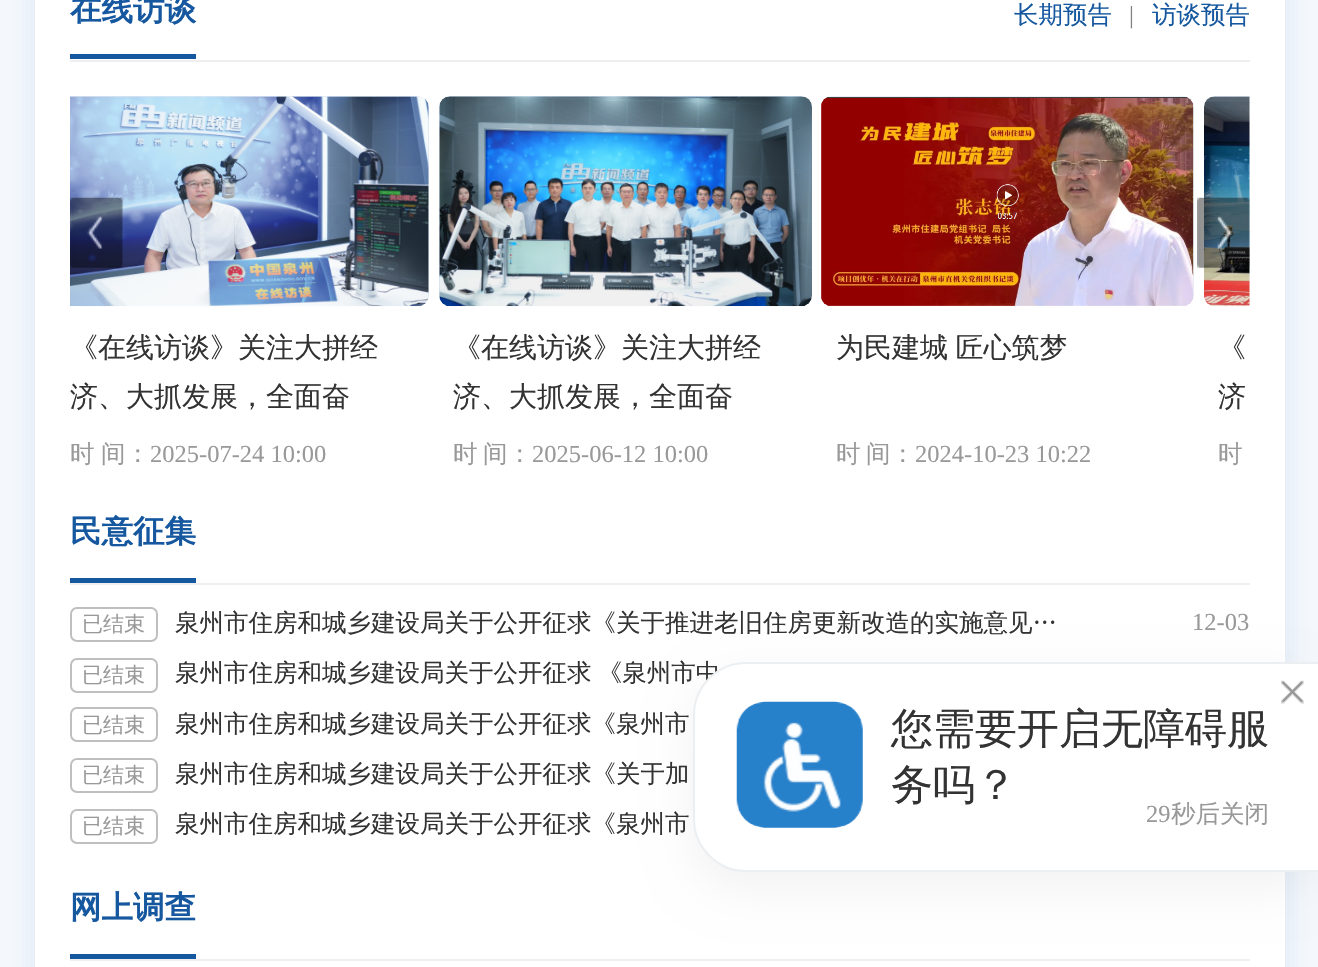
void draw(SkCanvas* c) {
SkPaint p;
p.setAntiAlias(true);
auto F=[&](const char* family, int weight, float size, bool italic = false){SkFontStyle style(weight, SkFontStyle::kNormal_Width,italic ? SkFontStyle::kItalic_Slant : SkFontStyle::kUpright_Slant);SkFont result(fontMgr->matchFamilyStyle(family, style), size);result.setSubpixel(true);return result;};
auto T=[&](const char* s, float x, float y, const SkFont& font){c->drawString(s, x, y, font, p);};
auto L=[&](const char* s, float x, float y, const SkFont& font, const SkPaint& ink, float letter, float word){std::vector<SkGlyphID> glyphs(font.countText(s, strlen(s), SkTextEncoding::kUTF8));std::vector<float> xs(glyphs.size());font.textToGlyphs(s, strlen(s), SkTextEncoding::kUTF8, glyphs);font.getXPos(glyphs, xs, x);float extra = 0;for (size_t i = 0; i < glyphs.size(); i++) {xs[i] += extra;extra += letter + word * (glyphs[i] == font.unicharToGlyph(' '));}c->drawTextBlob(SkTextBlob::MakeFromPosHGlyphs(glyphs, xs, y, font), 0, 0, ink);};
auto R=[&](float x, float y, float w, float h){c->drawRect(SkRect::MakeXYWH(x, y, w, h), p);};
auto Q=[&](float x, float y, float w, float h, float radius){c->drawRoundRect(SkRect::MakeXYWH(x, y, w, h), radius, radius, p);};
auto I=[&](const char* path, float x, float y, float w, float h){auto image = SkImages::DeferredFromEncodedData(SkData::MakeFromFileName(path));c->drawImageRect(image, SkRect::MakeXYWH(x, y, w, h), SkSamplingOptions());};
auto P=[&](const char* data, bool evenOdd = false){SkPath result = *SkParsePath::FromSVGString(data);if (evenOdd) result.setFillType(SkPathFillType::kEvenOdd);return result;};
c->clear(0xfff4f8fc);
p.setColor(0x1c105cb0);
p.setMaskFilter(SkMaskFilter::MakeBlur(kNormal_SkBlurStyle, 14));
c->drawRoundRect(SkRect::MakeXYWH(35,-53,1250,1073),11,11,p);
p.setMaskFilter(nullptr);
p.setColor(0xffffffff);
R(35,0,1250,967);
p.setColor(0xffefefef);
R(70,60,1180,2);
auto f1 = F("WenQuanYi Zen Hei",700,31.5);
p.setColor(0xff1658a0);
T("在线访谈",70,20,f1);
R(70,54,126,5);
auto f2 = F("WenQuanYi Zen Hei",500,24.5);
T("长期预告",1014,23,f2);
auto f3 = F("Liberation Serif",400,24.5);
p.setColor(0xff808080);
T("|",1129,23,f3);
p.setColor(0xff1658a0);
T("访谈预告",1152,23,f2);
p.setColor(0xfff8f8f8);
c->drawPath(P("M70 96h348c6 0 11 5 11 11v188c0 6-5 11-11 11h-348z"),p);
I("3.png",70,96,359,211);
I("1.png",70,197,53,71);
c->drawPath(P("M1215 96h35v210h-35c-6 0-11-5-11-11v-188c0-6 5-11 11-11z"),p);
I("6.png",1204,96,46,211);
I("2.png",1197,197,53,71);
auto f4 = F("WenQuanYi Zen Hei",500,28);
p.setColor(0xff333333);
T("《在线访谈》关注大拼经",70,357,f4);
T("济、大抓发展，全面奋",70,406,f4);
p.setColor(0xff999999);
T("时",70,462,f2);
T("间：",101,462,f2);
T("2025-07-24 10:00",150,462,f3);
p.setColor(0xfff8f8f8);
Q(439,96,373,210,11);
I("4.png",439,96,373,211);
p.setColor(0xff333333);
T("《在线访谈》关注大拼经",453,357,f4);
T("济、大抓发展，全面奋",453,406,f4);
p.setColor(0xff999999);
T("时",453,462,f2);
T("间：",483,462,f2);
T("2025-06-12 10:00",532,462,f3);
p.setColor(0xfff8f8f8);
Q(821,96,373,210,11);
I("5.png",821,96,373,210);
p.setColor(0xff333333);
L("为民建城 匠心筑梦",836,357,f4,p,0,-1);
p.setColor(0xff999999);
T("时",836,462,f2);
T("间：",866,462,f2);
T("2024-10-23 10:22",915,462,f3);
p.setColor(0xff333333);
T("《",1218,357,f4);
T("济",1218,406,f4);
p.setColor(0xff999999);
T("时",1218,462,f2);
p.setColor(0xffefefef);
R(70,583,1180,2);
p.setColor(0xff1658a0);
T("民意征集",70,542,f1);
R(70,578,126,5);
p.setStroke(true);
p.setStrokeWidth(2);
p.setColor(0xffbfbfbf);
c->drawRoundRect(SkRect::MakeXYWH(71,608,86,33),6,6,p);
auto f5 = F("WenQuanYi Zen Hei",500,21);
p.setStroke(false);
p.setColor(0xff999999);
T("已结束",82,631,f5);
p.setColor(0xff333333);
T("泉州市住房和城乡建设局关于公开征求《关于推进老旧住房更新改造的实施意见…",175,631,f2);
p.setColor(0xff999999);
T("12-03",1192,630,f3);
p.setStroke(true);
p.setColor(0xffbfbfbf);
c->drawRoundRect(SkRect::MakeXYWH(71,659,86,33),6,6,p);
p.setStroke(false);
p.setColor(0xff999999);
T("已结束",82,682,f5);
p.setColor(0xff333333);
L("泉州市住房和城乡建设局关于公开征求 《泉州市中",175,681,f2,p,0,-1);
p.setStroke(true);
p.setColor(0xffbfbfbf);
c->drawRoundRect(SkRect::MakeXYWH(71,708,86,33),6,6,p);
p.setStroke(false);
p.setColor(0xff999999);
T("已结束",82,732,f5);
p.setColor(0xff333333);
T("泉州市住房和城乡建设局关于公开征求《泉州市",175,732,f2);
p.setStroke(true);
p.setColor(0xffbfbfbf);
c->drawRoundRect(SkRect::MakeXYWH(71,759,86,33),6,6,p);
p.setStroke(false);
p.setColor(0xff999999);
T("已结束",82,782,f5);
p.setColor(0xff333333);
T("泉州市住房和城乡建设局关于公开征求《关于加",175,782,f2);
p.setStroke(true);
p.setColor(0xffbfbfbf);
c->drawRoundRect(SkRect::MakeXYWH(71,810,86,33),6,6,p);
p.setStroke(false);
p.setColor(0xff999999);
T("已结束",82,833,f5);
p.setColor(0xff333333);
T("泉州市住房和城乡建设局关于公开征求《泉州市",175,832,f2);
p.setColor(0xffefefef);
R(70,959,1180,2);
p.setColor(0xff1658a0);
T("网上调查",70,918,f1);
R(70,954,126,5);
p.setColor(0x0d040404);
p.setMaskFilter(SkMaskFilter::MakeBlur(kNormal_SkBlurStyle, 23.5));
c->drawRoundRect(SkRect::MakeXYWH(693,679,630,210),53,53,p);
p.setMaskFilter(nullptr);
p.setColor(0xffffffff);
c->drawPath(P("M746 663h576v208h-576c-28.5 0-52-23.5-52-52v-104c0-28.5 23.5-52 52-52z"),p);
p.setStroke(true);
p.setColor(0xffeceff2);
c->drawPath(P("M746 663h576v208h-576c-28.5 0-52-23.5-52-52v-104c0-28.5 23.5-52 52-52z"),p);
I("7.png",1281,680,23,24);
I("8.png",1282,681,21,21);
I("9.png",736,701,127,127);
auto f6 = F("WenQuanYi Zen Hei",500,42);
p.setStroke(false);
p.setColor(0xff333333);
T("您需要开启无障碍服",891,743,f6);
T("务吗？",891,799,f6);
p.setColor(0xff999999);
T("29",1146,822,f3);
T("秒后关闭",1171,822,f2);
}
